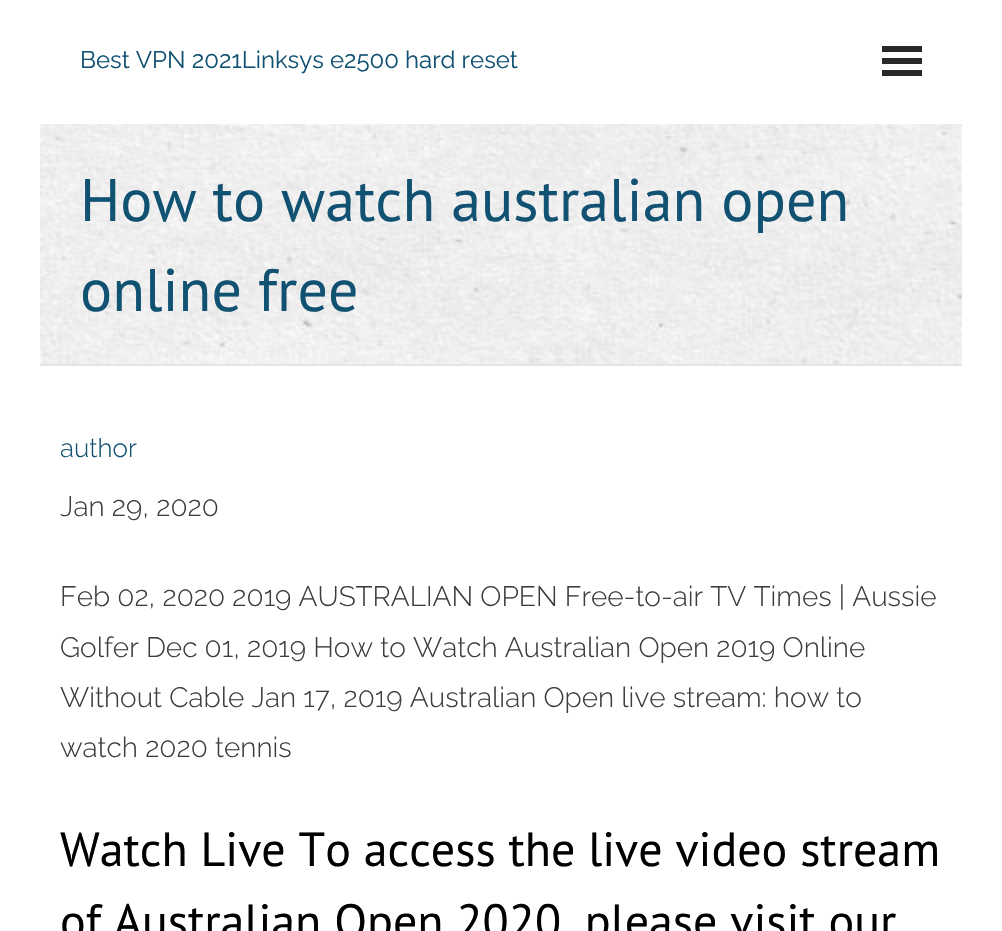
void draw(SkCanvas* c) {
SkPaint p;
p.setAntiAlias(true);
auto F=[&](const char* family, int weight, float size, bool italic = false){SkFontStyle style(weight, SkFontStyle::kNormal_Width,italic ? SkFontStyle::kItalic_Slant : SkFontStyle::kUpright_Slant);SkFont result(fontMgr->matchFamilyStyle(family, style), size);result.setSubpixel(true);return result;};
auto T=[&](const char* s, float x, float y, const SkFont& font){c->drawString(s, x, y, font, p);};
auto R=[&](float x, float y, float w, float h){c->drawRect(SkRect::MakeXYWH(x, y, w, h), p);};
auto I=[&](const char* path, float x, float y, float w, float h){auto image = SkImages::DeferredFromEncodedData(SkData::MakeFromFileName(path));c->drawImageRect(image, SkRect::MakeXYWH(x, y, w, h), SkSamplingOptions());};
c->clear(0xffffffff);
auto f1 = F("Raleway",400,24);
p.setColor(0xff115172);
T("Best VPN 2021Linksys e2500 hard reset",80,68,f1);
p.setColor(0xff292929);
R(882,46,40,6);
R(882,58,40,6);
R(882,70,40,6);
I("1.png",40,124,922,240);
p.setColor(0xffe5e5e5);
R(40,364,922,2);
auto f2 = F("PT Sans",400,60);
p.setColor(0xff115172);
T("How to watch australian open",80,221,f2);
T("online free",80,311,f2);
auto f3 = F("Raleway",300,26);
T("author",60,457,f3);
auto f4 = F("Raleway",300,28);
p.setColor(0xff3d3d3d);
T("Jan 29, 2020",60,516,f4);
T("Feb 02, 2020 2019 AUSTRALIAN OPEN Free-to-air TV Times | Aussie",60,606,f4);
T("Golfer Dec 01, 2019 How to Watch Australian Open 2019 Online",60,657,f4);
T("Without Cable Jan 17, 2019 Australian Open live stream: how to",60,707,f4);
T("watch 2020 tennis",60,757,f4);
auto f5 = F("PT Sans",400,48);
p.setColor(0xff000000);
T("Watch Live To access the live video stream",60,866,f5);
T("of Australian Open 2020, please visit our",60,938,f5);
}
